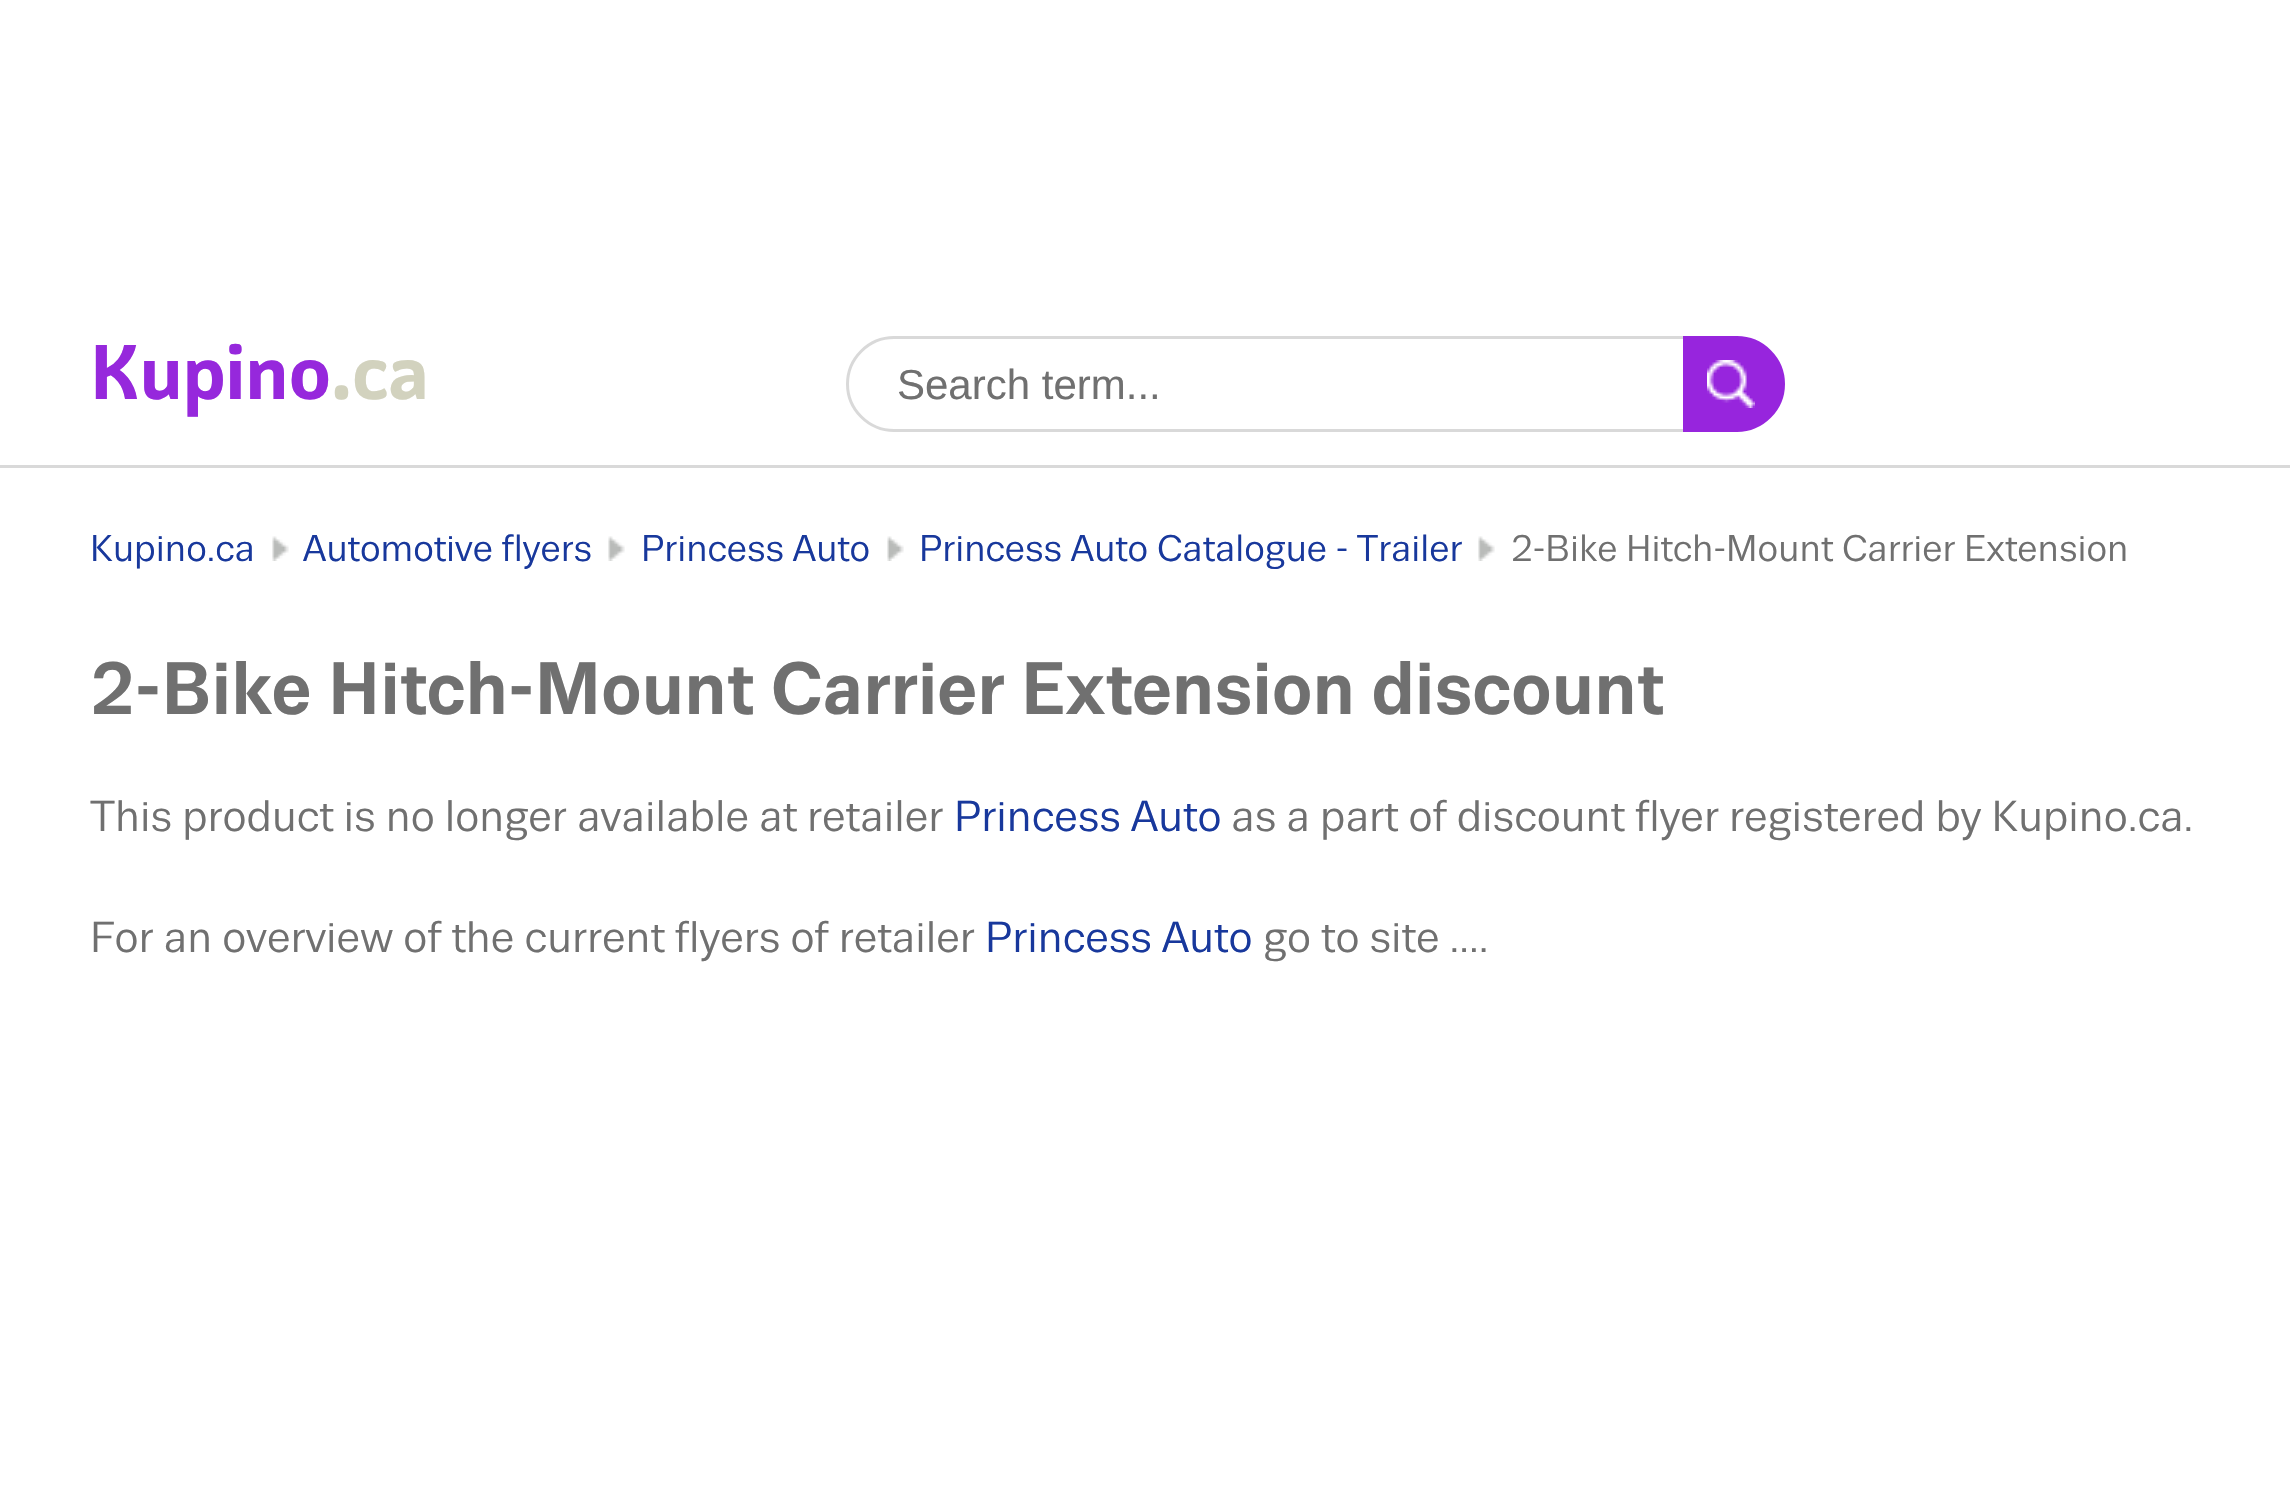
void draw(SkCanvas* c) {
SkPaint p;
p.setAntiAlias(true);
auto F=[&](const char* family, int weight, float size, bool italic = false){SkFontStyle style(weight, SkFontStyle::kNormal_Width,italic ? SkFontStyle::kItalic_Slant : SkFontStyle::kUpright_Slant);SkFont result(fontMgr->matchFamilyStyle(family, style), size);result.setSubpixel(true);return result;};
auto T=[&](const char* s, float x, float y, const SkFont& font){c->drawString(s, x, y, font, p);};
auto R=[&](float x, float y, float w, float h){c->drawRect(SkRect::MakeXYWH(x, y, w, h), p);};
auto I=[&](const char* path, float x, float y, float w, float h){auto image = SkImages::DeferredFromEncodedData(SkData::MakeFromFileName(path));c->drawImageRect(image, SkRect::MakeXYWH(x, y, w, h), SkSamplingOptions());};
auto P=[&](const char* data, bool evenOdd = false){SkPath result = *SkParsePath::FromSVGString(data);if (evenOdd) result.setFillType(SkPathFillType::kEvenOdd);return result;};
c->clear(0xffffffff);
p.setColor(0xffd9d9d9);
R(0,465,2290,3);
auto f1 = F("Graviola",700,75);
p.setColor(0xff9628dc);
T("Kupino",90,399,f1);
p.setColor(0xffd2d2be);
T(".ca",331,399,f1);
p.setStroke(true);
p.setStrokeWidth(3);
p.setColor(0xffd9d9d9);
c->drawPath(P("M894 337.5h790.5v93h-790.5c-25.5 0-46.5-21-46.5-46.5c0-25.5 21-46.5 46.5-46.5z"),p);
auto f2 = F("Liberation Sans",400,42);
p.setStroke(false);
p.setColor(0xff707070);
T("Search term...",897,399,f2);
p.setColor(0xff9725dd);
c->drawPath(P("M1684.5 337.5h52.5c25.5 0 46.5 21 46.5 46.5c0 25.5-21 46.5-46.5 46.5h-52.5z"),p);
p.setStroke(true);
c->drawPath(P("M1684.5 337.5h52.5c25.5 0 46.5 21 46.5 46.5c0 25.5-21 46.5-46.5 46.5h-52.5z"),p);
I("1.png",1707,360,48,48);
auto f3 = F("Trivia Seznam",400,36);
p.setStroke(false);
p.setColor(0xff18389c);
T("Kupino.ca",90,561,f3);
I("2.png",272,536,17,25);
T("Automotive flyers",303,561,f3);
I("3.png",608,536,17,25);
T("Princess Auto",641,561,f3);
I("4.png",887,536,17,25);
T("Princess Auto Catalogue - Trailer",919,561,f3);
I("3.png",1478,536,17,25);
p.setColor(0xff707070);
T("2-Bike Hitch-Mount Carrier Extension",1511,561,f3);
auto f4 = F("Trivia Seznam",700,72);
T("2-Bike Hitch-Mount Carrier Extension discount",90,714,f4);
auto f5 = F("Trivia Seznam",400,42);
T("This product is no longer available at retailer",90,831,f5);
p.setColor(0xff18389c);
T("Princess Auto",954,831,f5);
p.setColor(0xff707070);
T("as a part of discount flyer registered by Kupino.ca.",1231,831,f5);
T("For an overview of the current flyers of retailer",90,952,f5);
p.setColor(0xff18389c);
T("Princess Auto",985,952,f5);
p.setColor(0xff707070);
T("go to site ....",1263,952,f5);
}
